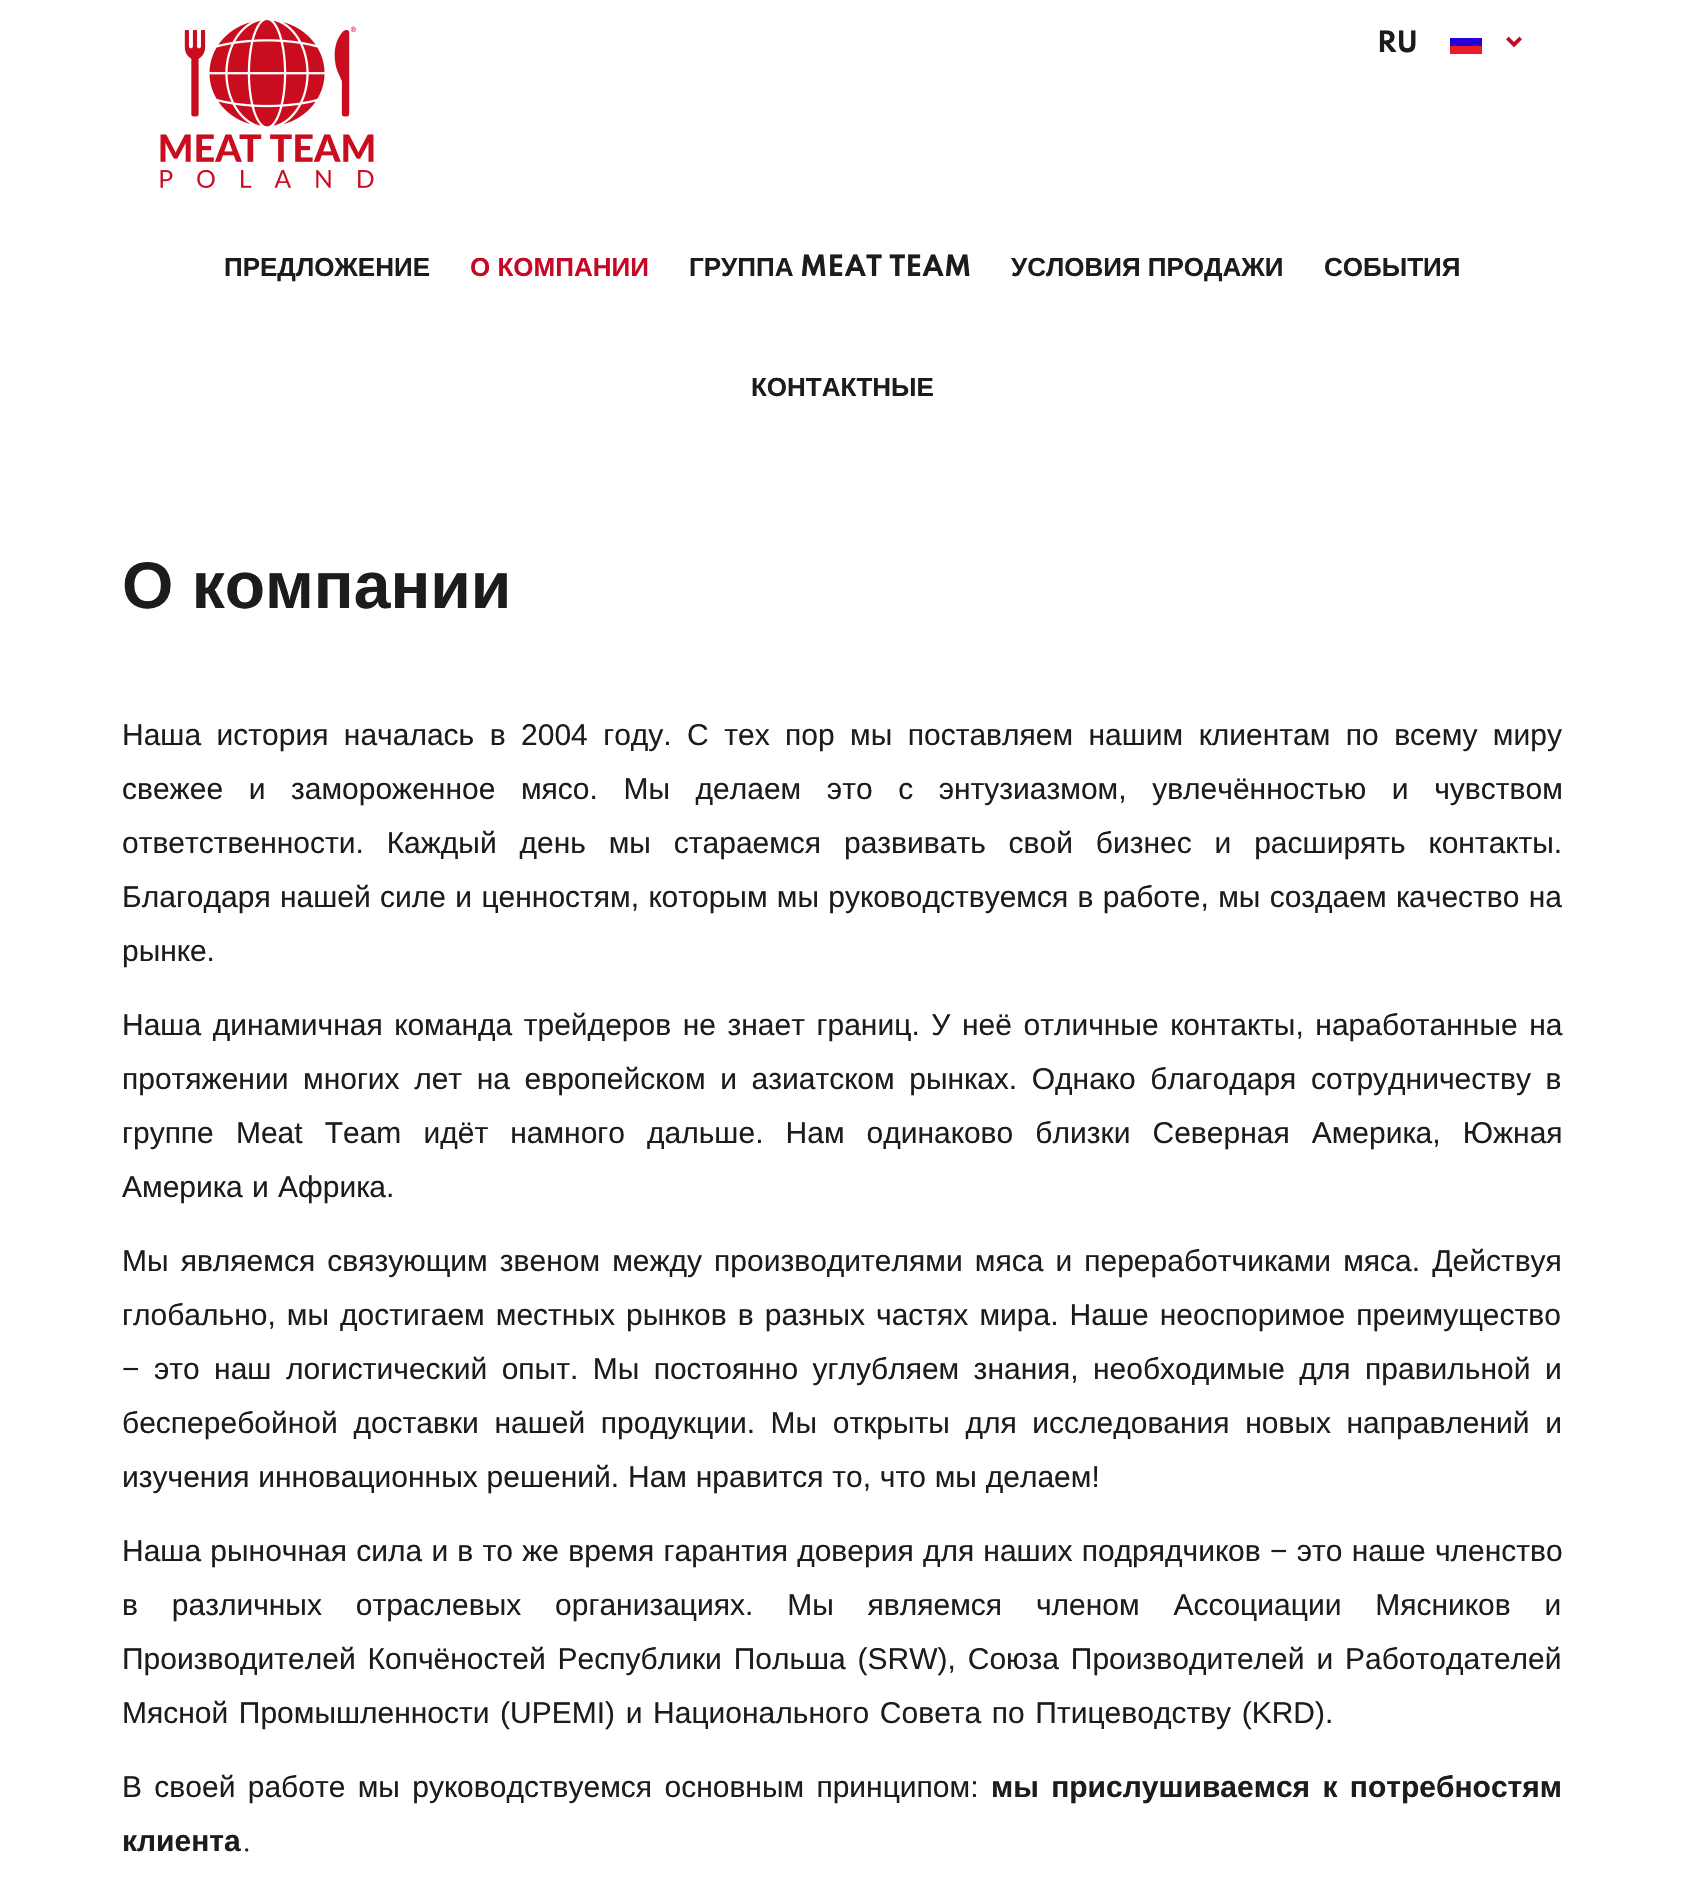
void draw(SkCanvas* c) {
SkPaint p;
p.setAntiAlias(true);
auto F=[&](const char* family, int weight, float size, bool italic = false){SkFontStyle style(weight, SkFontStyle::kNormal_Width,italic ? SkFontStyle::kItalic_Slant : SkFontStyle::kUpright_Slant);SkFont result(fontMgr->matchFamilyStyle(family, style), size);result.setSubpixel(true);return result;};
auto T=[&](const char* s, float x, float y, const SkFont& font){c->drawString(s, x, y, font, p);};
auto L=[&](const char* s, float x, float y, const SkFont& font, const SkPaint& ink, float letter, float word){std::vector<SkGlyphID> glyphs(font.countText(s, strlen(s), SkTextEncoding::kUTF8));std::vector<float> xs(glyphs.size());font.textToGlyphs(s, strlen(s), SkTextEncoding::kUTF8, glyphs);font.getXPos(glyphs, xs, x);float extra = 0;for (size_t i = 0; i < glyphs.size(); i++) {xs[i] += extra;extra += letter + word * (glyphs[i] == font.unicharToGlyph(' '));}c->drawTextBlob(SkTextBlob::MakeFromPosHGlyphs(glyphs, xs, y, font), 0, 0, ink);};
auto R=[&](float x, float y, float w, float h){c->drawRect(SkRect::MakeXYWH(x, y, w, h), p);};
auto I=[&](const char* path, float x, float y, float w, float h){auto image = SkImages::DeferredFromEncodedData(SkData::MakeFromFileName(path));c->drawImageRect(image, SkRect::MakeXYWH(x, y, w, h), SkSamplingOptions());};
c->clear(0xffffffff);
I("1.png",160,20,214,168);
I("2.png",1506,36,16,12);
p.setColor(0xffed1c24);
R(1450,46,32,8);
p.setColor(0xff2400d6);
R(1450,38,32,8);
auto f1 = F("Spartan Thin",700,26);
p.setColor(0xff1c1c1c);
T("RU",1377,52,f1);
auto f2 = F("Liberation Sans",700,26);
T("ПРЕДЛОЖЕНИЕ",224,276,f2);
p.setColor(0xffc70728);
T("О КОМПАНИИ",470,276,f2);
p.setColor(0xff1c1c1c);
T("ГРУППА",689,276,f2);
T("MEAT TEAM",800,276,f1);
T("УСЛОВИЯ ПРОДАЖИ",1011,276,f2);
T("СОБЫТИЯ",1324,276,f2);
T("КОНТАКТНЫЕ",751,396,f2);
auto f3 = F("Liberation Sans",700,66);
T("О компании",122,608,f3);
auto f4 = F("Liberation Sans",400,30);
L("Наша история началась в 2004 году. С тех пор мы поставляем нашим клиентам по всему миру",122,745,f4,p,0,7.1);
L("свежее и замороженное мясо. Мы делаем это с энтузиазмом, увлечённостью и чувством",122,799,f4,p,0,17.25);
L("ответственности. Каждый день мы стараемся развивать свой бизнес и расширять контакты.",122,853,f4,p,0,14.5);
L("Благодаря нашей силе и ценностям, которым мы руководствуемся в работе, мы создаем качество на",122,907,f4,p,0,1);
T("рынке.",122,961,f4);
L("Наша динамичная команда трейдеров не знает границ. У неё отличные контакты, наработанные на",122,1035,f4,p,0,3.25);
L("протяжении многих лет на европейском и азиатском рынках. Однако благодаря сотрудничеству в",122,1089,f4,p,0,6.25);
L("группе Meat Team идёт намного дальше. Нам одинаково близки Северная Америка, Южная",122,1143,f4,p,0,13.75);
L("Америка и Африка.",122,1197,f4,p,0,1);
L("Мы являемся связующим звеном между производителями мяса и переработчиками мяса. Действуя",122,1271,f4,p,0,3.75);
L("глобально, мы достигаем местных рынков в разных частях мира. Наше неоспоримое преимущество",122,1325,f4,p,0,2.75);
L("− это наш логистический опыт. Мы постоянно углубляем знания, необходимые для правильной и",122,1379,f4,p,0,6.1);
L("бесперебойной доставки нашей продукции. Мы открыты для исследования новых направлений и",122,1433,f4,p,0,7.25);
L("изучения инновационных решений. Нам нравится то, что мы делаем!",122,1487,f4,p,0,.5);
L("Наша рыночная сила и в то же время гарантия доверия для наших подрядчиков − это наше членство",122,1561,f4,p,0,.9);
L("в различных отраслевых организациях. Мы являемся членом Ассоциации Мясников и",122,1615,f4,p,0,25.5);
L("Производителей Копчёностей Республики Польша (SRW), Союза Производителей и Работодателей",122,1669,f4,p,0,3.5);
L("Мясной Промышленности (UPEMI) и Национального Совета по Птицеводству (KRD).",122,1723,f4,p,0,2.25);
L("В своей работе мы руководствуемся основным принципом:",122,1797,f4,p,0,4);
auto f5 = F("Liberation Sans",700,30);
L("мы прислушиваемся к потребностям",991,1797,f5,p,0,4);
T("клиента",122,1851,f5);
auto f6 = F("Spartan Thin",400,30);
T(".",241,1851,f6);
}
